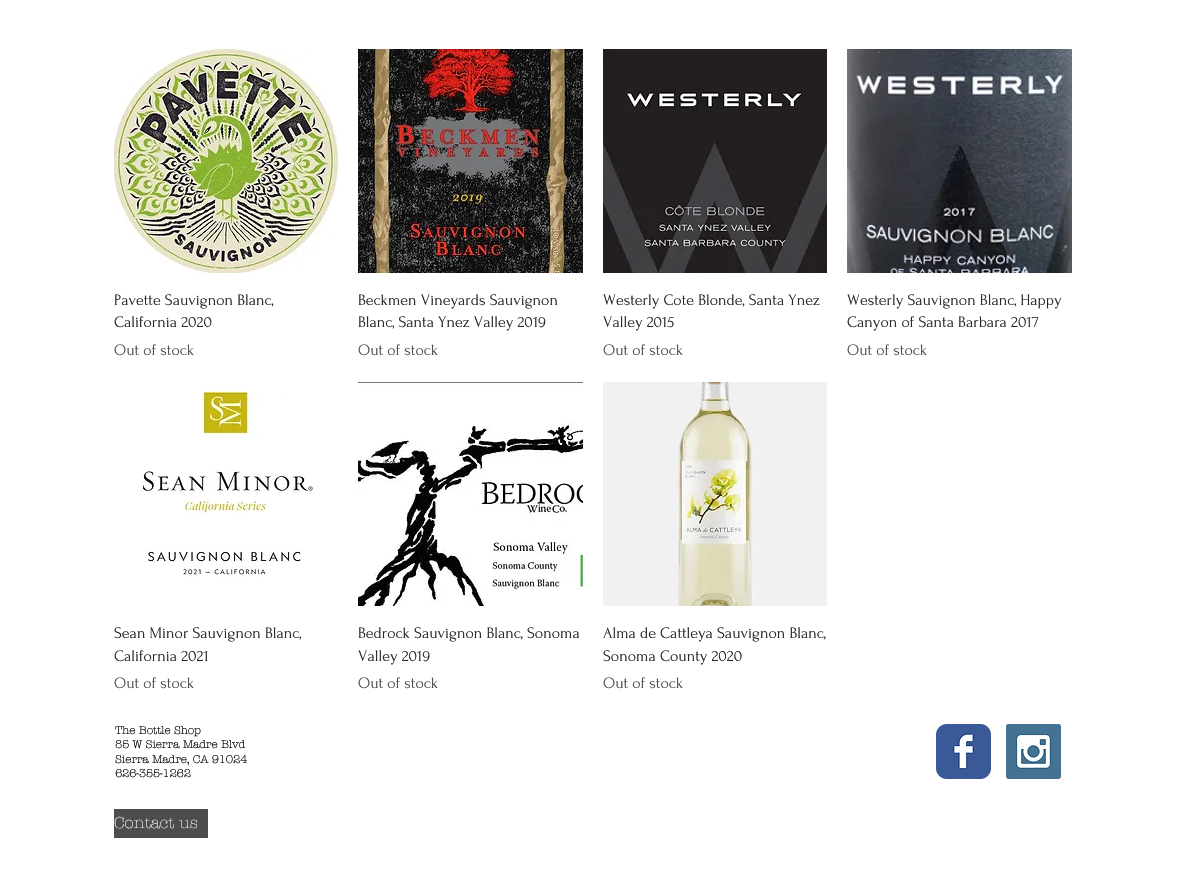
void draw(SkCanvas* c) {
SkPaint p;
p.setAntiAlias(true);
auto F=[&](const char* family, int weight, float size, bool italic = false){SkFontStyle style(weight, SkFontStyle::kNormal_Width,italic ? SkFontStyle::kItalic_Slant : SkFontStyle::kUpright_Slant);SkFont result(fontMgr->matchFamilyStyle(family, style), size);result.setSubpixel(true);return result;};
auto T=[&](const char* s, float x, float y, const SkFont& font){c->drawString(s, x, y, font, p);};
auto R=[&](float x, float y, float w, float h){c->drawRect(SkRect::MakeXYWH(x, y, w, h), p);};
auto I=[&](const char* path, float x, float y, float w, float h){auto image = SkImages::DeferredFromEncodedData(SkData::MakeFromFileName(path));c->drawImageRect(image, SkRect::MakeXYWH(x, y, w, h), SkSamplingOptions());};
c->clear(0xffffffff);
I("1.png",114,49,224,224);
auto f1 = F("Forum",400,16);
p.setColor(0xff262626);
T("Pavette Sauvignon Blanc,",114,305,f1);
T("California 2020",114,327,f1);
p.setColor(0xff4d4d4d);
T("Out of stock",114,355,f1);
I("2.png",358,49,225,224);
p.setColor(0xff262626);
T("Beckmen Vineyards Sauvignon",358,305,f1);
T("Blanc, Santa Ynez Valley 2019",358,327,f1);
p.setColor(0xff4d4d4d);
T("Out of stock",358,355,f1);
I("3.png",603,49,224,224);
p.setColor(0xff262626);
T("Westerly Cote Blonde, Santa Ynez",603,305,f1);
T("Valley 2015",603,327,f1);
p.setColor(0xff4d4d4d);
T("Out of stock",603,355,f1);
I("4.png",847,49,225,224);
p.setColor(0xff262626);
T("Westerly Sauvignon Blanc, Happy",847,305,f1);
T("Canyon of Santa Barbara 2017",847,327,f1);
p.setColor(0xff4d4d4d);
T("Out of stock",847,355,f1);
I("5.png",141,390,172,188);
p.setColor(0xff262626);
T("Sean Minor Sauvignon Blanc,",114,638,f1);
T("California 2021",114,661,f1);
p.setColor(0xff4d4d4d);
T("Out of stock",114,688,f1);
I("6.png",358,382,225,224);
p.setColor(0xff262626);
T("Bedrock Sauvignon Blanc, Sonoma",358,638,f1);
T("Valley 2019",358,661,f1);
p.setColor(0xff4d4d4d);
T("Out of stock",358,688,f1);
I("7.png",603,382,224,224);
p.setColor(0xff262626);
T("Alma de Cattleya Sauvignon Blanc,",603,638,f1);
T("Sonoma County 2020",603,661,f1);
p.setColor(0xff4d4d4d);
T("Out of stock",603,688,f1);
auto f2 = F("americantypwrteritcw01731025",700,11);
p.setColor(0xff000000);
T("The Bottle Shop",115,734,f2);
T("85 W Sierra Madre Blvd",115,748,f2);
T("Sierra Madre, CA 91024",115,763,f2);
T("626-355-1262",115,777,f2);
I("8.png",936,724,55,55);
I("9.png",1006,724,55,55);
p.setColor(0xff4d4d4d);
R(114,809,94,29);
auto f3 = F("americantypwrteritcw01731025",300,16);
p.setColor(0xffffffff);
T("Contact us",114,828,f3);
}
